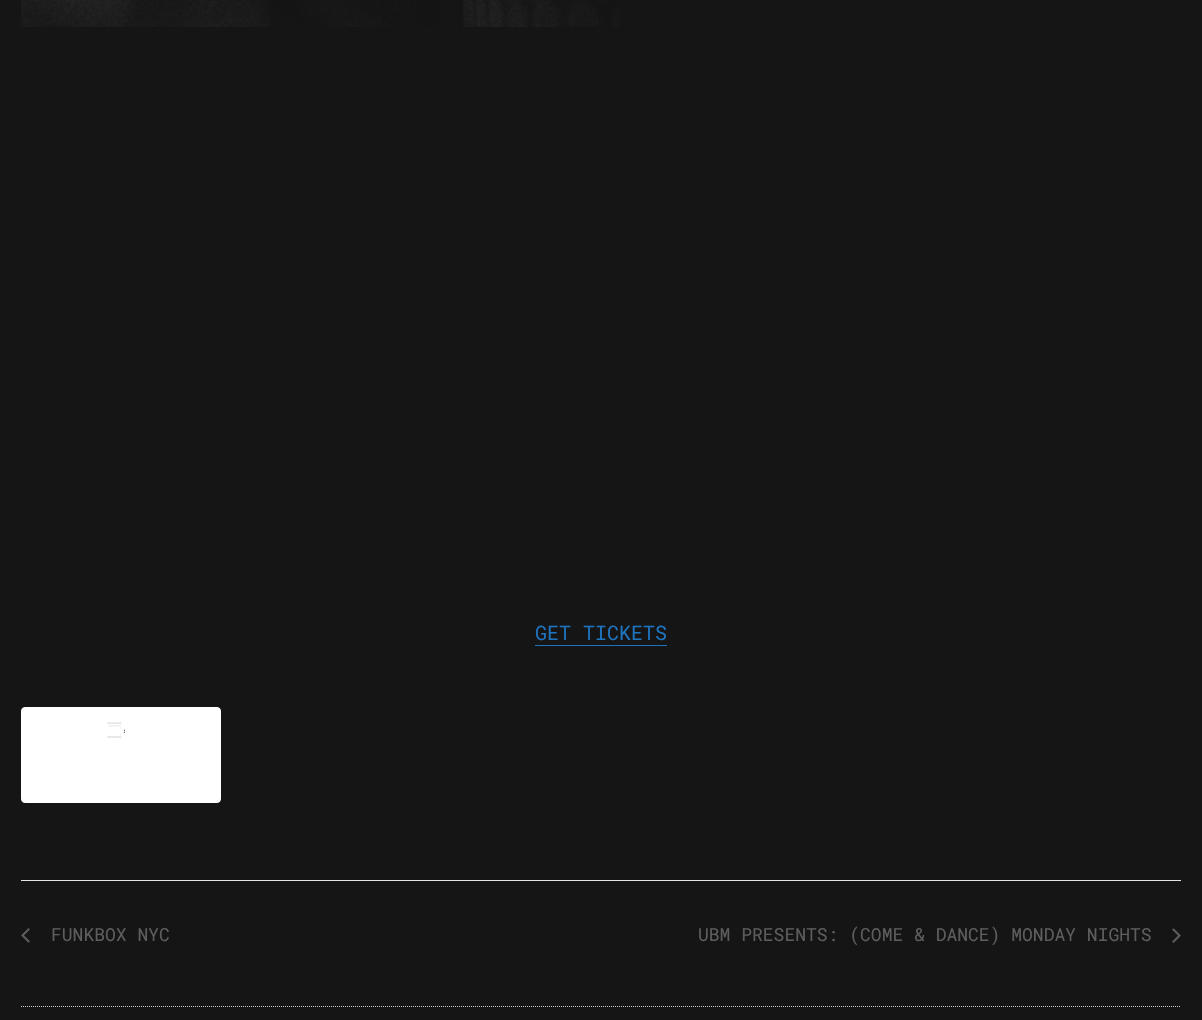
void draw(SkCanvas* c) {
SkPaint p;
p.setAntiAlias(true);
auto F=[&](const char* family, int weight, float size, bool italic = false){SkFontStyle style(weight, SkFontStyle::kNormal_Width,italic ? SkFontStyle::kItalic_Slant : SkFontStyle::kUpright_Slant);SkFont result(fontMgr->matchFamilyStyle(family, style), size);result.setSubpixel(true);return result;};
auto T=[&](const char* s, float x, float y, const SkFont& font){c->drawString(s, x, y, font, p);};
auto R=[&](float x, float y, float w, float h){c->drawRect(SkRect::MakeXYWH(x, y, w, h), p);};
auto I=[&](const char* path, float x, float y, float w, float h){auto image = SkImages::DeferredFromEncodedData(SkData::MakeFromFileName(path));c->drawImageRect(image, SkRect::MakeXYWH(x, y, w, h), SkSamplingOptions());};
auto P=[&](const char* data, bool evenOdd = false){SkPath result = *SkParsePath::FromSVGString(data);if (evenOdd) result.setFillType(SkPathFillType::kEvenOdd);return result;};
c->clear(0xff151515);
I("1.png",21,0,599,27);
auto f1 = F("Roboto Mono",400,20);
p.setColor(0xff1e73be);
T("GET TICKETS",535,640,f1);
R(535,645,132,1);
p.setColor(0xffffffff);
c->drawRoundRect(SkRect::MakeXYWH(21.5,707.5,199,95),3.5,3.5,p);
p.setStroke(true);
p.setStrokeWidth(1);
c->drawRoundRect(SkRect::MakeXYWH(21.5,707.5,199,95),3.5,3.5,p);
I("2.png",107,722,20,16);
p.setStroke(false);
p.setColor(0xffe4e4e4);
R(21,880,1160,1);
I("3.png",21,928,9,15);
auto f2 = F("Roboto Mono",400,18);
p.setColor(0xff5d5d5d);
T("FUNKBOX NYC",51,941,f2);
T("UBM PRESENTS: (COME & DANCE) MONDAY NIGHTS",698,941,f2);
I("4.png",1172,928,9,15);
p.setStroke(true);
p.setColor(0xffcccccc);
p.setPathEffect(SkDashPathEffect::Make({{1,1}}, 0));
c->drawPath(P("M21 1006.5h1160"),p);
p.setPathEffect(nullptr);
}
